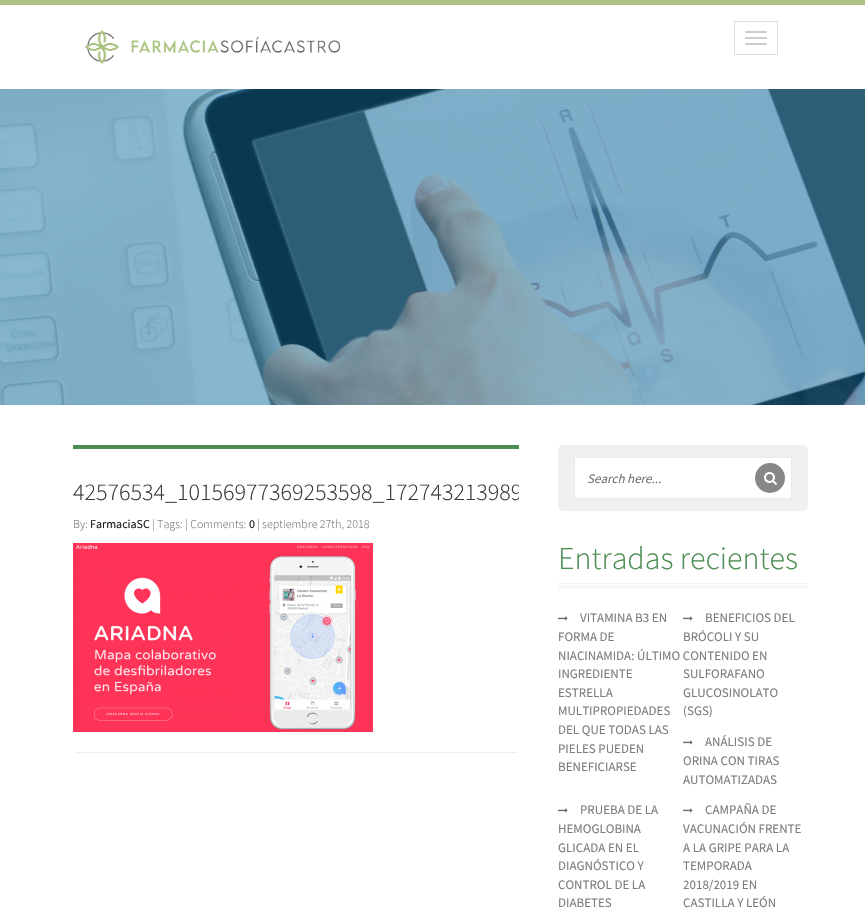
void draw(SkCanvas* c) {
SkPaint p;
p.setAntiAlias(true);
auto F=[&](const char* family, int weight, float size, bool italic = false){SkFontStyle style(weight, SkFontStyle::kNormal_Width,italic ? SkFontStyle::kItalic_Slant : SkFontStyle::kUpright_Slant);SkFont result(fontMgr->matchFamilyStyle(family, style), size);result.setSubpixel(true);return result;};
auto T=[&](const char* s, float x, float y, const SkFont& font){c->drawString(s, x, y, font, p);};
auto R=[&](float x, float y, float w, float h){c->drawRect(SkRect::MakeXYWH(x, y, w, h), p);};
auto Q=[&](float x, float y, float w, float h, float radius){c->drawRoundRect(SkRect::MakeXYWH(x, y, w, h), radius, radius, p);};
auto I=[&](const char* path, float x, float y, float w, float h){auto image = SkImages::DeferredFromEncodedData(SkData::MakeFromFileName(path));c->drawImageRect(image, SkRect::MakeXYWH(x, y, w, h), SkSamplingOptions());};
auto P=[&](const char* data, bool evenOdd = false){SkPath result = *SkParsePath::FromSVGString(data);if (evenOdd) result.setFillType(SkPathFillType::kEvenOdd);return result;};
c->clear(0xffffffff);
p.setColor(0xffafc186);
R(0,0,865,5);
I("1.png",84,30,257,34);
p.setStroke(true);
p.setStrokeWidth(1);
p.setColor(0xffdddddd);
c->drawRect(SkRect::MakeXYWH(734.5,21.5,43,33),p);
p.setStroke(false);
p.setColor(0xffcccccc);
Q(745,31,22,2,1);
Q(745,37,22,2,1);
Q(745,43,22,2,1);
I("2.png",0,89,865,316);
p.setColor(0xff4c8d52);
R(73,445,446,4);
p.setColor(0xffeeeeee);
R(76,752,441,1);
c->save();
c->clipPath(P("M73 449h446v299c0 2-2 4-5 4h-436c-3 0-5-2-5-4z"),true);
auto f1 = F("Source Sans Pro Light",300,24);
p.setColor(0xff373737);
T("42576534_10156977369253598_172743213989",73,500,f1);
c->restore();
auto f2 = F("Source Sans Pro Light",300,12);
p.setColor(0xff727272);
T("By:",73,528,f2);
auto f3 = F("Source Sans Pro",400,12);
p.setColor(0xff1d1d1d);
T("FarmaciaSC",90,528,f3);
p.setColor(0xff727272);
T("| Tags: | Comments:",152,528,f2);
p.setColor(0xff1d1d1d);
T("0",249,528,f3);
p.setColor(0xff727272);
T("| septiembre 27th, 2018",257,528,f2);
I("3.png",73,543,300,189);
p.setColor(0xfff0f0f0);
Q(558,445,250,66,5);
p.setColor(0xffffffff);
c->drawRect(SkRect::MakeXYWH(574.5,457.5,217,41),p);
p.setStroke(true);
p.setColor(0xffe9e9e9);
c->drawRect(SkRect::MakeXYWH(574.5,457.5,217,41),p);
auto f4 = F("Source Sans Pro",400,13,true);
p.setStroke(false);
p.setColor(0xff727272);
T("Search here...",587,483,f4);
p.setColor(0xff888888);
c->drawCircle(770,478,15,p);
I("4.png",764,472,13,13);
I("5.png",558,583,250,5);
auto f5 = F("Source Sans Pro Light",300,32);
p.setColor(0xff4c8d52);
T("Entradas recientes",558,569,f5);
I("6.png",558,616,10,5);
auto f6 = F("Source Sans Pro",400,13);
p.setColor(0xff7d7d7d);
T("VITAMINA B3 EN",580,622,f6);
T("FORMA DE",558,641,f6);
T("NIACINAMIDA: ÚLTIMO CONTENIDO EN",558,660,f6);
T("INGREDIENTE",558,678,f6);
T("ESTRELLA",558,697,f6);
T("MULTIPROPIEDADES",558,715,f6);
T("DEL QUE TODAS LAS",558,734,f6);
T("PIELES PUEDEN",558,753,f6);
T("BENEFICIARSE",558,771,f6);
I("6.png",683,616,10,5);
T("BENEFICIOS DEL",705,622,f6);
T("BRÓCOLI Y SU",683,641,f6);
T("SULFORAFANO",683,678,f6);
T("GLUCOSINOLATO",683,697,f6);
T("(SGS)",683,715,f6);
I("6.png",683,740,10,5);
T("ANÁLISIS DE",705,746,f6);
T("ORINA CON TIRAS",683,765,f6);
T("AUTOMATIZADAS",683,784,f6);
I("6.png",558,808,10,5);
T("PRUEBA DE LA",580,814,f6);
T("HEMOGLOBINA",558,833,f6);
T("GLICADA EN EL",558,852,f6);
T("DIAGNÓSTICO Y",558,870,f6);
T("CONTROL DE LA",558,889,f6);
T("DIABETES",558,907,f6);
I("6.png",683,808,10,5);
T("CAMPAÑA DE",705,814,f6);
T("VACUNACIÓN FRENTE",683,833,f6);
T("A LA GRIPE PARA LA",683,852,f6);
T("TEMPORADA",683,870,f6);
T("2018/2019 EN",683,889,f6);
T("CASTILLA Y LEÓN",683,907,f6);
}
